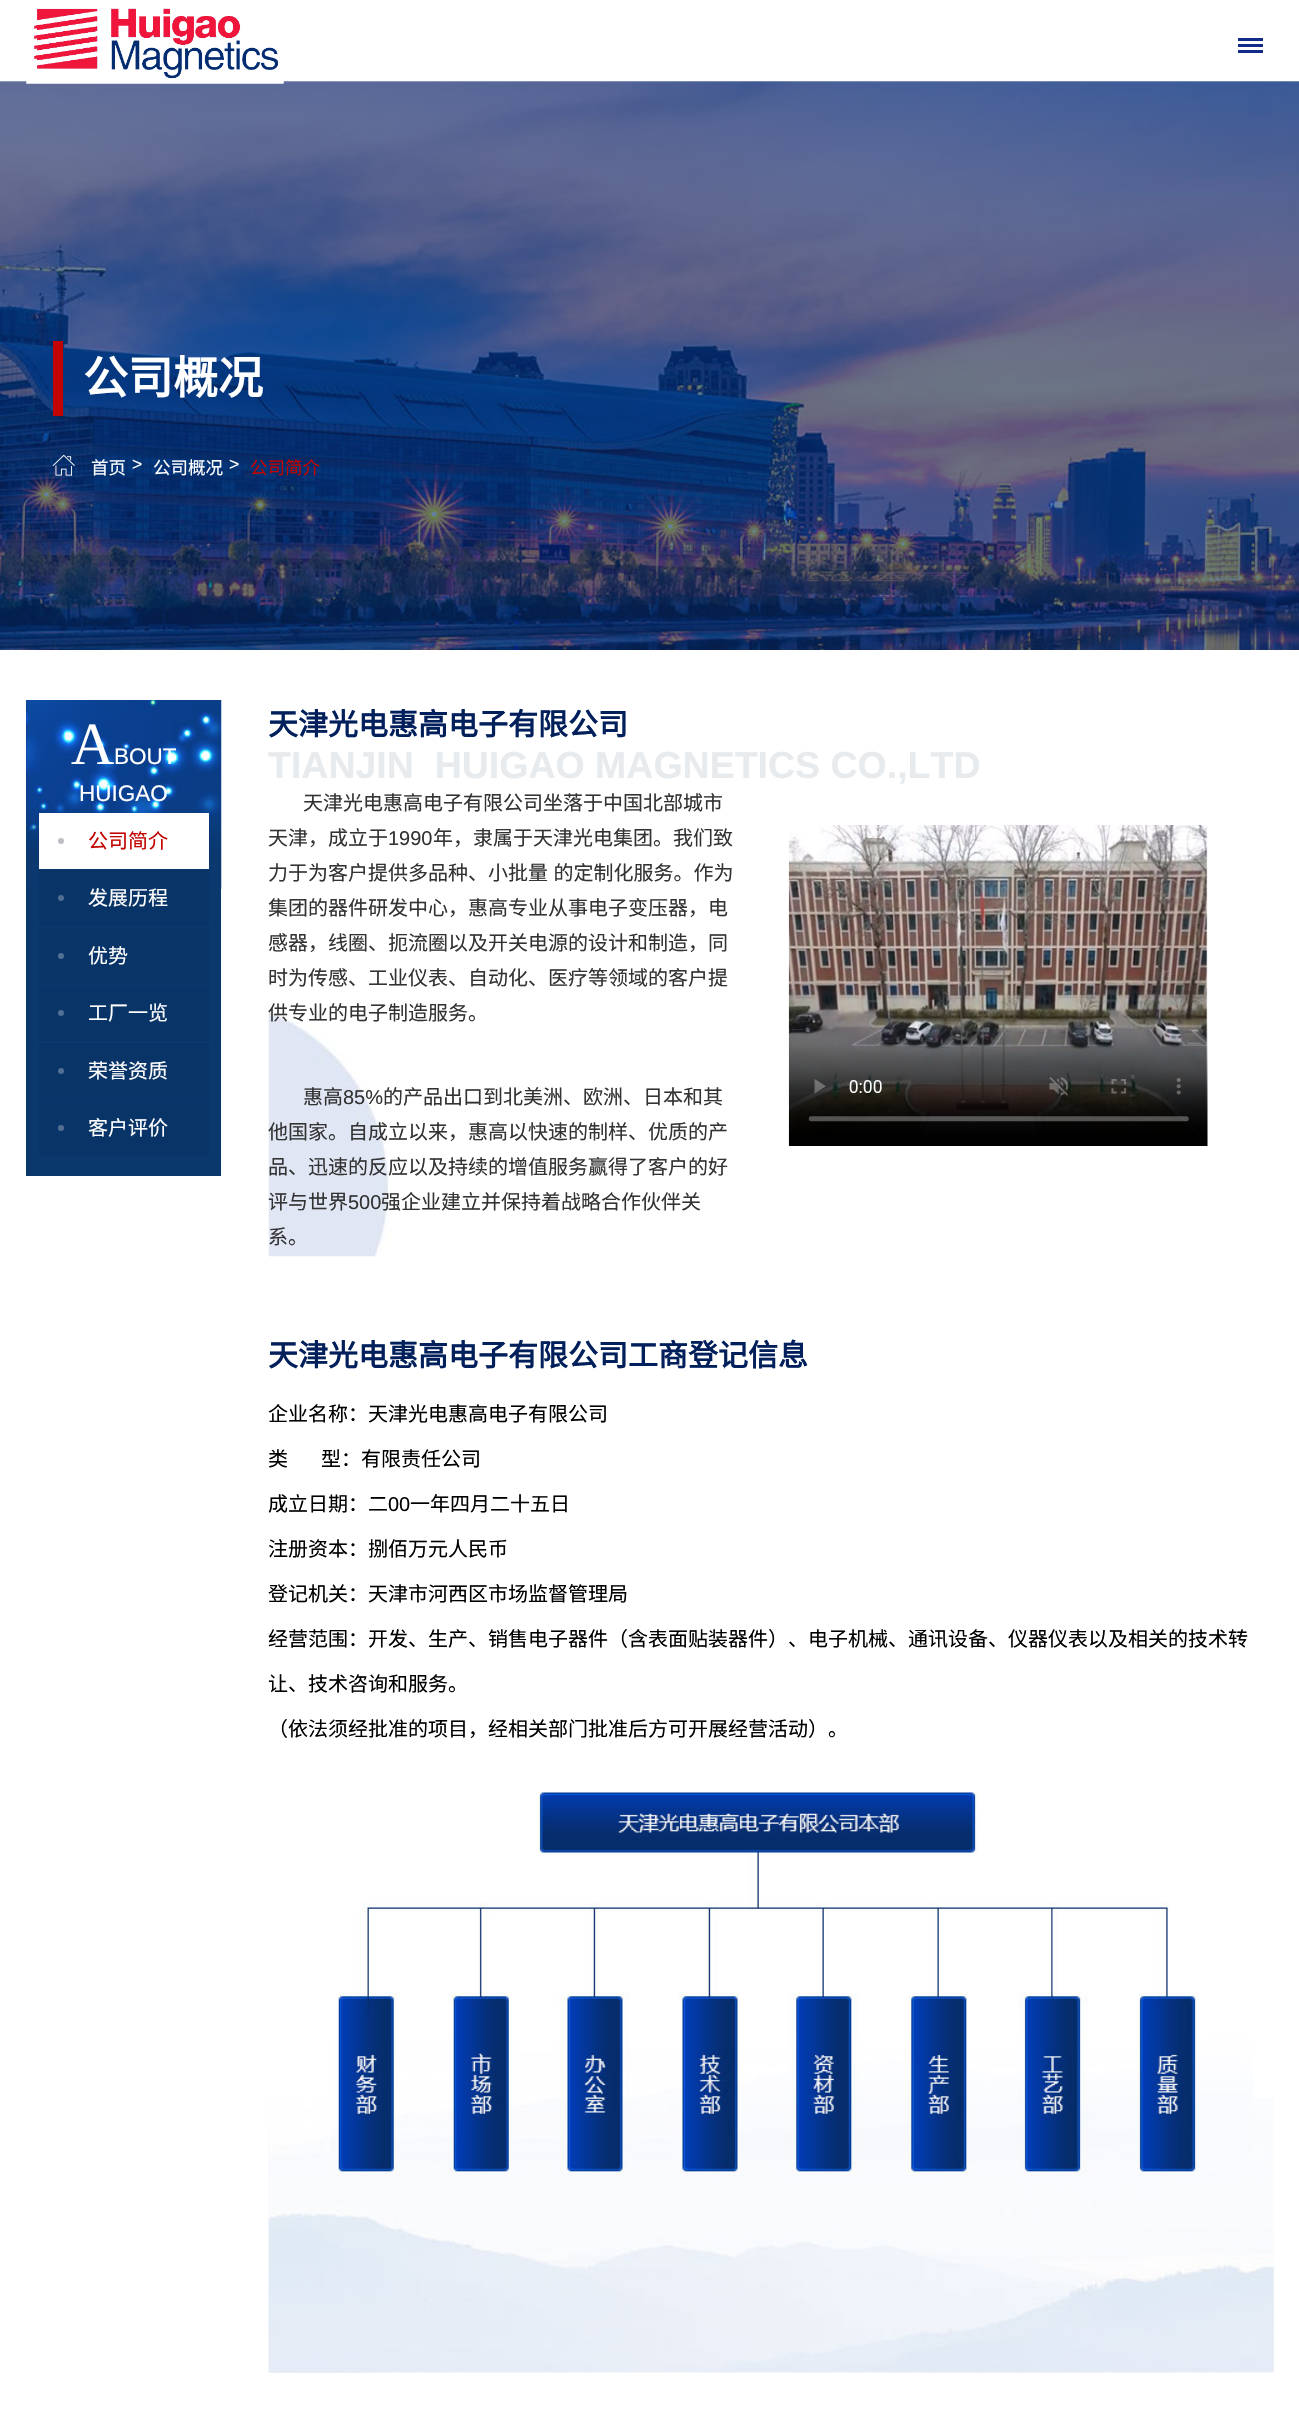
void draw(SkCanvas* c) {
SkPaint p;
p.setAntiAlias(true);
auto F=[&](const char* family, int weight, float size, bool italic = false){SkFontStyle style(weight, SkFontStyle::kNormal_Width,italic ? SkFontStyle::kItalic_Slant : SkFontStyle::kUpright_Slant);SkFont result(fontMgr->matchFamilyStyle(family, style), size);result.setSubpixel(true);return result;};
auto T=[&](const char* s, float x, float y, const SkFont& font){c->drawString(s, x, y, font, p);};
auto L=[&](const char* s, float x, float y, const SkFont& font, const SkPaint& ink, float letter, float word){std::vector<SkGlyphID> glyphs(font.countText(s, strlen(s), SkTextEncoding::kUTF8));std::vector<float> xs(glyphs.size());font.textToGlyphs(s, strlen(s), SkTextEncoding::kUTF8, glyphs);font.getXPos(glyphs, xs, x);float extra = 0;for (size_t i = 0; i < glyphs.size(); i++) {xs[i] += extra;extra += letter + word * (glyphs[i] == font.unicharToGlyph(' '));}c->drawTextBlob(SkTextBlob::MakeFromPosHGlyphs(glyphs, xs, y, font), 0, 0, ink);};
auto R=[&](float x, float y, float w, float h){c->drawRect(SkRect::MakeXYWH(x, y, w, h), p);};
auto I=[&](const char* path, float x, float y, float w, float h){auto image = SkImages::DeferredFromEncodedData(SkData::MakeFromFileName(path));c->drawImageRect(image, SkRect::MakeXYWH(x, y, w, h), SkSamplingOptions());};
c->clear(0xffffffff);
I("2.png",0,81,1299,569);
I("1.png",26,8,258,76);
p.setColor(0xff122a88);
R(1238,50,25,3);
R(1238,38,25,3);
R(1238,44,25,3);
p.setColor(0xffc20300);
R(53,341,10,75);
auto f1 = F("Noto Sans CJK SC",700,45);
p.setColor(0xffffffff);
T("公司概况",83,394,f1);
I("3.png",52,454,23,22);
auto f2 = F("Noto Sans CJK SC",400,17.5);
T("首页",91,474,f2);
auto f3 = F("Liberation Sans",400,17.5);
T(">",132,470,f3);
T("公司概况",153,474,f2);
T(">",229,470,f3);
p.setColor(0xffc20300);
T("公司简介",250,474,f2);
p.setColor(0xff0a386d);
R(26,700,195,476);
I("4.png",26,700,196,189);
auto f4 = F("Liberation Serif",400,60);
p.setColor(0xffffffff);
T("A",71,764,f4);
auto f5 = F("Liberation Sans",400,22.5);
T("BOUT",114,764,f5);
T("HUIGAO",79,801,f5);
R(39,813,170,56);
p.setColor(0xffbebfc6);
c->drawCircle(61,841,3,p);
auto f6 = F("Noto Sans CJK SC",400,20);
p.setColor(0xffc20300);
T("公司简介",88,848,f6);
p.setColor(0xff083467);
R(39,870,170,56);
p.setColor(0xff506f93);
c->drawCircle(61,898,3,p);
p.setColor(0xffffffff);
T("发展历程",88,905,f6);
p.setColor(0xff083467);
R(39,928,170,56);
p.setColor(0xff506f93);
c->drawCircle(61,956,3,p);
p.setColor(0xffffffff);
T("优势",88,963,f6);
p.setColor(0xff083467);
R(39,985,170,56);
p.setColor(0xff506f93);
c->drawCircle(61,1013,3,p);
p.setColor(0xffffffff);
T("工厂一览",88,1020,f6);
p.setColor(0xff083467);
R(39,1043,170,56);
p.setColor(0xff506f93);
c->drawCircle(61,1071,3,p);
p.setColor(0xffffffff);
T("荣誉资质",88,1078,f6);
p.setColor(0xff083467);
R(39,1100,170,56);
p.setColor(0xff506f93);
c->drawCircle(61,1128,3,p);
p.setColor(0xffffffff);
T("客户评价",88,1135,f6);
I("5.png",268,2127,125,246);
I("6.png",268,1011,125,246);
auto f7 = F("Noto Sans CJK SC",700,30);
p.setColor(0xff001f5b);
T("天津光电惠高电子有限公司",268,735,f7);
auto f8 = F("Liberation Sans",700,37.5);
p.setColor(0xffe8ebee);
T("TIANJIN  HUIGAO MAGNETICS CO.,LTD",268,778,f8);
p.setColor(0xff333333);
T("天津光电惠高电子有限公司坐落于中国北部城市",303,810,f6);
T("天津，成立于",268,845,f6);
auto f9 = F("Liberation Sans",400,20);
T("1990",388,845,f9);
T("年，隶属于天津光电集团。我们致",433,845,f6);
L("力于为客户提供多品种、小批量 的定制化服务。作为",268,880,f6,p,0,1);
T("集团的器件研发中心，惠高专业从事电子变压器，电",268,915,f6);
T("感器，线圈、扼流圈以及开关电源的设计和制造，同",268,950,f6);
T("时为传感、工业仪表、自动化、医疗等领域的客户提",268,985,f6);
T("供专业的电子制造服务。",268,1020,f6);
T("惠高",303,1104,f6);
T("85%",343,1104,f9);
T("的产品出口到北美洲、欧洲、日本和其",383,1104,f6);
T("他国家。自成立以来，惠高以快速的制样、优质的产",268,1139,f6);
T("品、迅速的反应以及持续的增值服务赢得了客户的好",268,1174,f6);
T("评与世界",268,1209,f6);
T("500",348,1209,f9);
T("强企业建立并保持着战略合作伙伴关",381,1209,f6);
T("系。",268,1244,f6);
I("7.png",788,825,420,321);
I("8.png",268,2097,1006,276);
p.setColor(0xff001f5b);
T("天津光电惠高电子有限公司工商登记信息",268,1366,f7);
p.setColor(0xff000000);
T("企业名称：天津光电惠高电子有限公司",268,1421,f6);
T("类",268,1466,f6);
T("型：有限责任公司",321,1466,f6);
T("成立日期：二",268,1511,f6);
T("00",388,1511,f9);
T("一年四月二十五日",410,1511,f6);
T("注册资本：捌佰万元人民币",268,1556,f6);
T("登记机关：天津市河西区市场监督管理局",268,1601,f6);
T("经营范围：开发、生产、销售电子器件（含表面贴装器件）、电子机械、通讯设备、仪器仪表以及相关的技术转",268,1646,f6);
T("让、技术咨询和服务。",268,1691,f6);
T("（依法须经批准的项目，经相关部门批准后方可开展经营活动）。",268,1736,f6);
I("9.png",330,1792,923,382);
}
